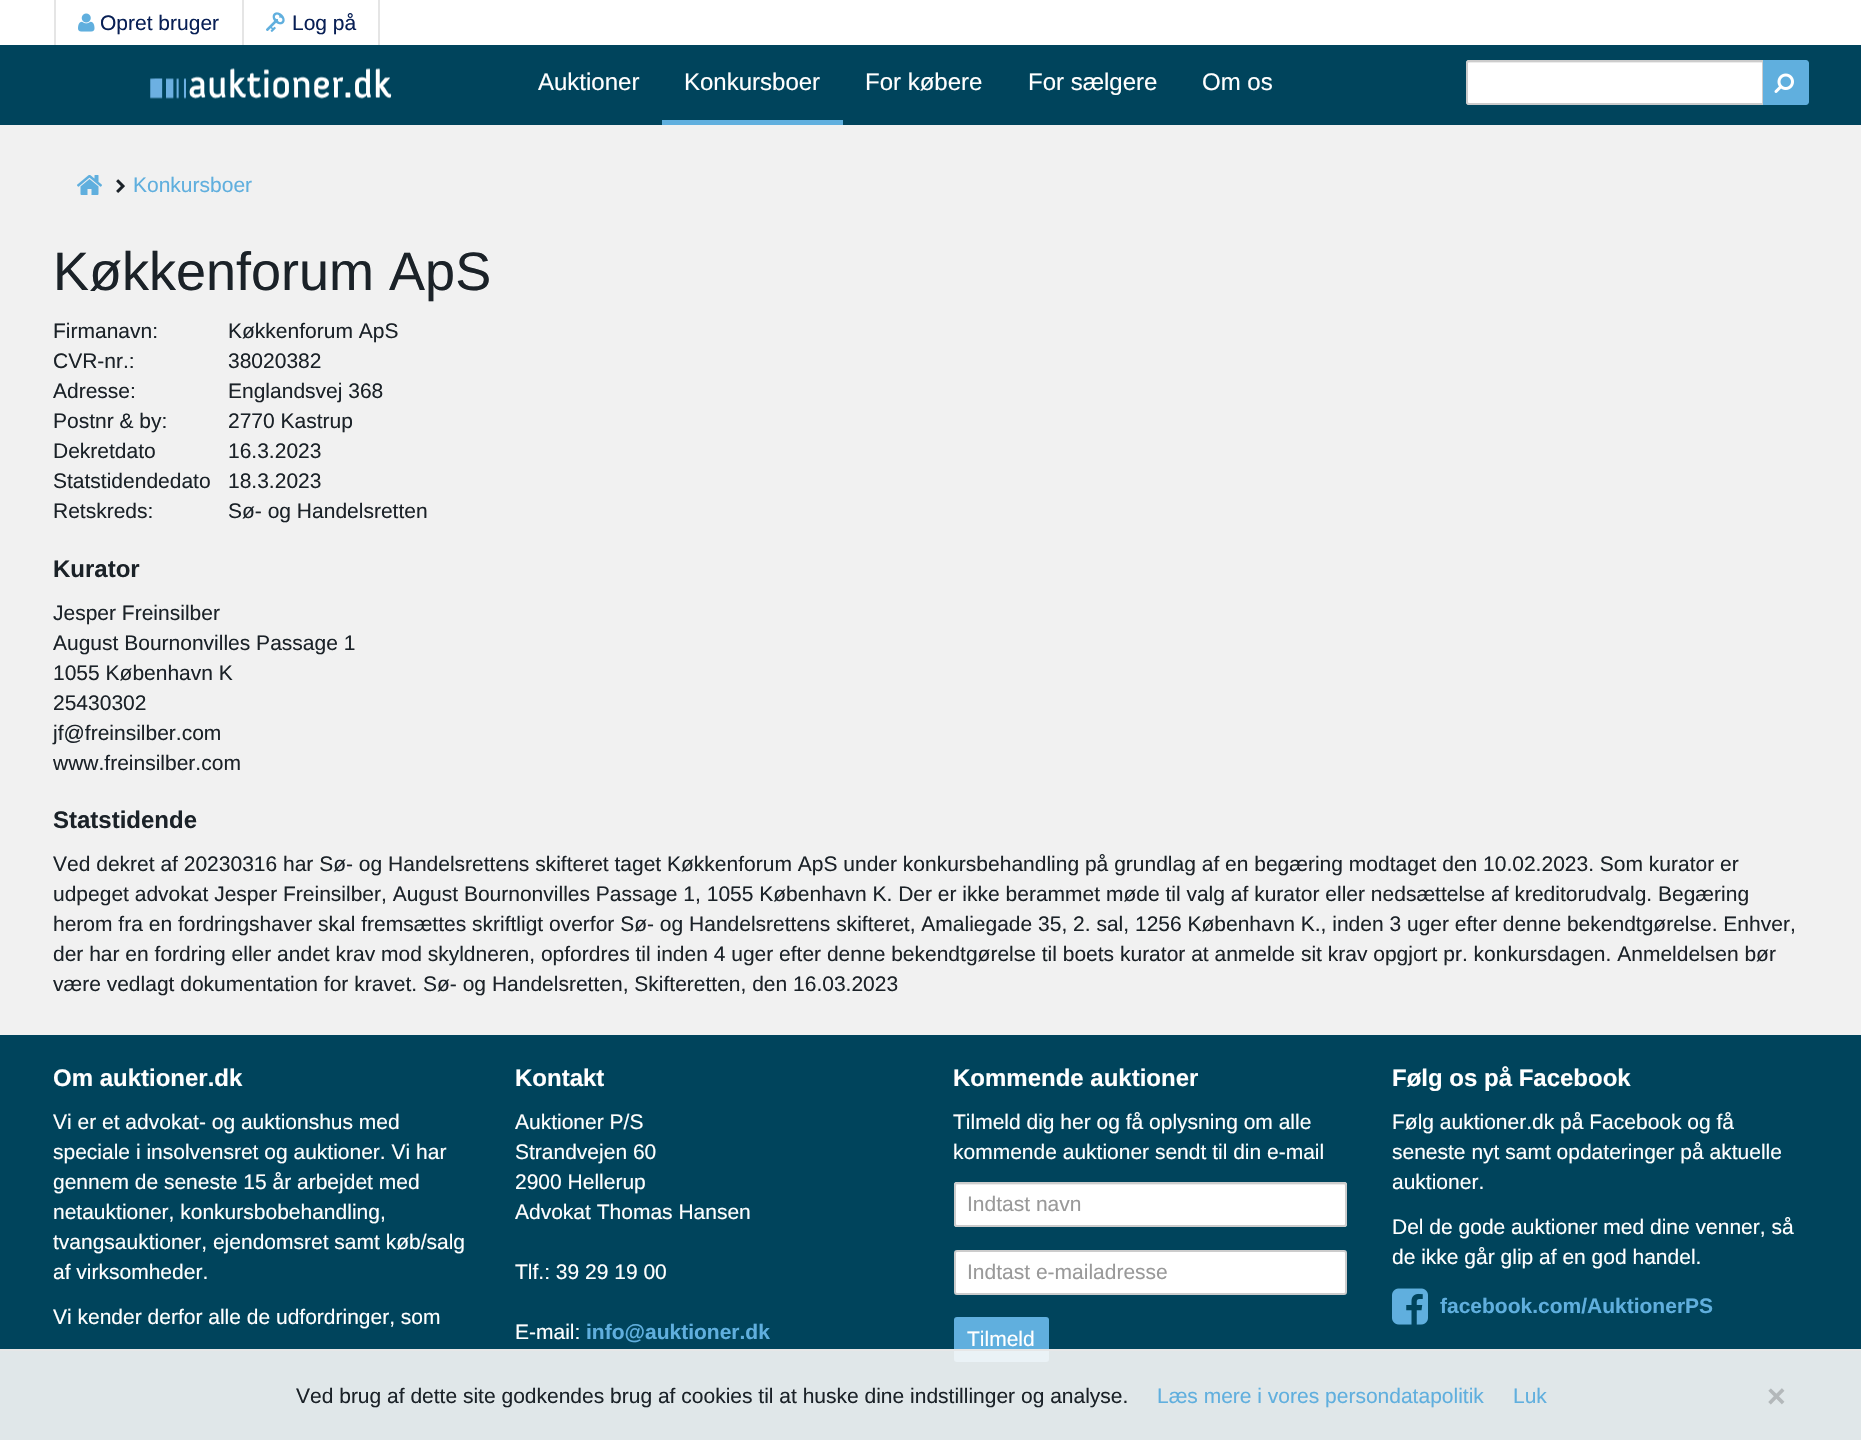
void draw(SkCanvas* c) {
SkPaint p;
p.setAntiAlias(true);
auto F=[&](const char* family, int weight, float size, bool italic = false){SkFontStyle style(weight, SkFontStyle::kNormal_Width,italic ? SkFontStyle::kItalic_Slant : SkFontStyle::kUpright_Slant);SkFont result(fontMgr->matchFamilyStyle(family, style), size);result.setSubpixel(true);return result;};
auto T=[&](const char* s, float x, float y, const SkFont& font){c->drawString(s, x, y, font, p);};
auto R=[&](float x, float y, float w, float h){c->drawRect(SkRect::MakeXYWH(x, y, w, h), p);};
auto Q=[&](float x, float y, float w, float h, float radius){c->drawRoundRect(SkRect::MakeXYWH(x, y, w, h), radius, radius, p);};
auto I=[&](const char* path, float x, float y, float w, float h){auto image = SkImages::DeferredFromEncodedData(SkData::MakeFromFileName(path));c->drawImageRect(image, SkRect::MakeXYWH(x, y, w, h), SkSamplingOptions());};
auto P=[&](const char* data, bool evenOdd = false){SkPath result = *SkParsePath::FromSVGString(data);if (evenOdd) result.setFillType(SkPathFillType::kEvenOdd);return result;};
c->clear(0xfff1f1f1);
p.setColor(0xffffffff);
R(0,0,1861,45);
p.setColor(0xffe5e5e5);
R(242,0,2,45);
R(54,0,2,45);
I("1.png",78,13,17,19);
auto f1 = F("Liberation Sans",400,21);
p.setColor(0xff081f55);
T("Opret bruger",100,30,f1);
p.setColor(0xffe5e5e5);
R(378,0,2,45);
I("2.png",266,12,19,20);
p.setColor(0xff081f55);
T("Log på",292,30,f1);
p.setColor(0xff00445c);
R(0,45,1861,80);
I("3.png",150,68,242,31);
auto f2 = F("Liberation Sans",400,24);
p.setColor(0xffffffff);
T("Auktioner",538,90,f2);
p.setColor(0xff60afde);
R(662,120,181,5);
p.setColor(0xffffffff);
T("Konkursboer",684,90,f2);
T("For købere",865,90,f2);
T("For sælgere",1028,90,f2);
T("Om os",1202,90,f2);
c->drawPath(P("M1469 60h295v45h-295c-1.5 0-3-1.5-3-3v-39c0-1.5 1.5-3 3-3z"),p);
p.setColor(0xffececec);
c->drawPath(P("M1468 63h294v41h1v-42h-295l-1 1v1z"),p);
p.setStroke(true);
p.setStrokeWidth(2);
p.setColor(0xffcccccc);
c->drawPath(P("M1469 61h294v43h-294c-1 0-2-1-2-2v-39c0-1 1-2 2-2z"),p);
p.setStroke(false);
p.setColor(0xff60afde);
c->drawPath(P("M1763 60h43c1.5 0 3 1.5 3 3v39c0 1.5-1.5 3-3 3h-43z"),p);
I("4.png",1774,73,20,20);
I("5.png",77,175,25,20);
I("6.png",116,179,9,14);
T("Konkursboer",133,192,f1);
auto f3 = F("Liberation Sans",400,54);
p.setColor(0xff1b2228);
T("Køkkenforum ApS",53,290,f3);
T("Firmanavn:",53,338,f1);
T("Køkkenforum ApS",228,338,f1);
T("CVR-nr.:",53,368,f1);
T("38020382",228,368,f1);
T("Adresse:",53,398,f1);
T("Englandsvej 368",228,398,f1);
T("Postnr & by:",53,428,f1);
T("2770 Kastrup",228,428,f1);
T("Dekretdato",53,458,f1);
T("16.3.2023",228,458,f1);
T("Statstidendedato",53,488,f1);
T("18.3.2023",228,488,f1);
T("Retskreds:",53,518,f1);
T("Sø- og Handelsretten",228,518,f1);
auto f4 = F("Liberation Sans",700,24);
T("Kurator",53,577,f4);
T("Jesper Freinsilber",53,620,f1);
T("August Bournonvilles Passage 1",53,650,f1);
T("1055 København K",53,680,f1);
T("25430302",53,710,f1);
T("jf@freinsilber.com",53,740,f1);
T("www.freinsilber.com",53,770,f1);
T("Statstidende",53,828,f4);
T("Ved dekret af 20230316 har Sø- og Handelsrettens skifteret taget Køkkenforum ApS under konkursbehandling på grundlag af en begæring modtaget den 10.02.2023. Som kurator er",53,871,f1);
T("udpeget advokat Jesper Freinsilber, August Bournonvilles Passage 1, 1055 København K. Der er ikke berammet møde til valg af kurator eller nedsættelse af kreditorudvalg. Begæring",53,901,f1);
T("herom fra en fordringshaver skal fremsættes skriftligt overfor Sø- og Handelsrettens skifteret, Amaliegade 35, 2. sal, 1256 København K., inden 3 uger efter denne bekendtgørelse. Enhver,",53,931,f1);
T("der har en fordring eller andet krav mod skyldneren, opfordres til inden 4 uger efter denne bekendtgørelse til boets kurator at anmelde sit krav opgjort pr. konkursdagen. Anmeldelsen bør",53,961,f1);
T("være vedlagt dokumentation for kravet. Sø- og Handelsretten, Skifteretten, den 16.03.2023",53,991,f1);
p.setColor(0xff00445c);
R(0,1035,1861,405);
p.setColor(0xffffffff);
T("Om auktioner.dk",53,1086,f4);
T("Vi er et advokat- og auktionshus med",53,1129,f1);
T("speciale i insolvensret og auktioner. Vi har",53,1159,f1);
T("gennem de seneste 15 år arbejdet med",53,1189,f1);
T("netauktioner, konkursbobehandling,",53,1219,f1);
T("tvangsauktioner, ejendomsret samt køb/salg",53,1249,f1);
T("af virksomheder.",53,1279,f1);
T("Vi kender derfor alle de udfordringer, som",53,1324,f1);
T("Kontakt",515,1086,f4);
T("Auktioner P/S",515,1129,f1);
T("Strandvejen 60",515,1159,f1);
T("2900 Hellerup",515,1189,f1);
T("Advokat Thomas Hansen",515,1219,f1);
T("Tlf.: 39 29 19 00",515,1279,f1);
T("E-mail:",515,1339,f1);
auto f5 = F("Liberation Sans",700,21);
p.setColor(0xff60afde);
T("info@auktioner.dk",586,1339,f5);
p.setColor(0xffffffff);
T("Kommende auktioner",953,1086,f4);
T("Tilmeld dig her og få oplysning om alle",953,1129,f1);
T("kommende auktioner sendt til din e-mail",953,1159,f1);
Q(954,1182,393,45,3);
p.setColor(0xffececec);
c->drawPath(P("M957 1185h387l2 1c0-1 0-2-2-2h-386c-2 0-2 1-2 2z"),p);
p.setStroke(true);
p.setColor(0xffcccccc);
c->drawRoundRect(SkRect::MakeXYWH(955,1183,391,43),2,2,p);
p.setStroke(false);
p.setColor(0xff999999);
T("Indtast navn",967,1211,f1);
p.setColor(0xffffffff);
c->drawRoundRect(SkRect::MakeXYWH(955,1251,391,43),2,2,p);
p.setStroke(true);
p.setColor(0xffcccccc);
c->drawRoundRect(SkRect::MakeXYWH(955,1251,391,43),2,2,p);
p.setStroke(false);
p.setColor(0xff999999);
T("Indtast e-mailadresse",967,1279,f1);
p.setColor(0xff60afde);
Q(954,1317,95,45,3);
p.setColor(0xffffffff);
T("Tilmeld",967,1346,f1);
T("Følg os på Facebook",1392,1086,f4);
T("Følg auktioner.dk på Facebook og få",1392,1129,f1);
T("seneste nyt samt opdateringer på aktuelle",1392,1159,f1);
T("auktioner.",1392,1189,f1);
T("Del de gode auktioner med dine venner, så",1392,1234,f1);
T("de ikke går glip af en god handel.",1392,1264,f1);
I("7.png",1392,1288,36,37);
p.setColor(0xff60afde);
T("facebook.com/AuktionerPS",1440,1313,f5);
p.setColor(0xe6f8f8f8);
R(0,1351,1861,89);
p.setColor(0xffe7e7e7);
R(0,1349,1861,2);
p.setColor(0xff1b2228);
T("Ved brug af dette site godkendes brug af cookies til at huske dine indstillinger og analyse.",296,1403,f1);
p.setColor(0xff60afde);
T("Læs mere i vores persondatapolitik",1157,1403,f1);
T("Luk",1513,1403,f1);
auto f6 = F("Liberation Sans",700,32);
p.setColor(0xffb3b8ba);
T("×",1767,1407,f6);
}
